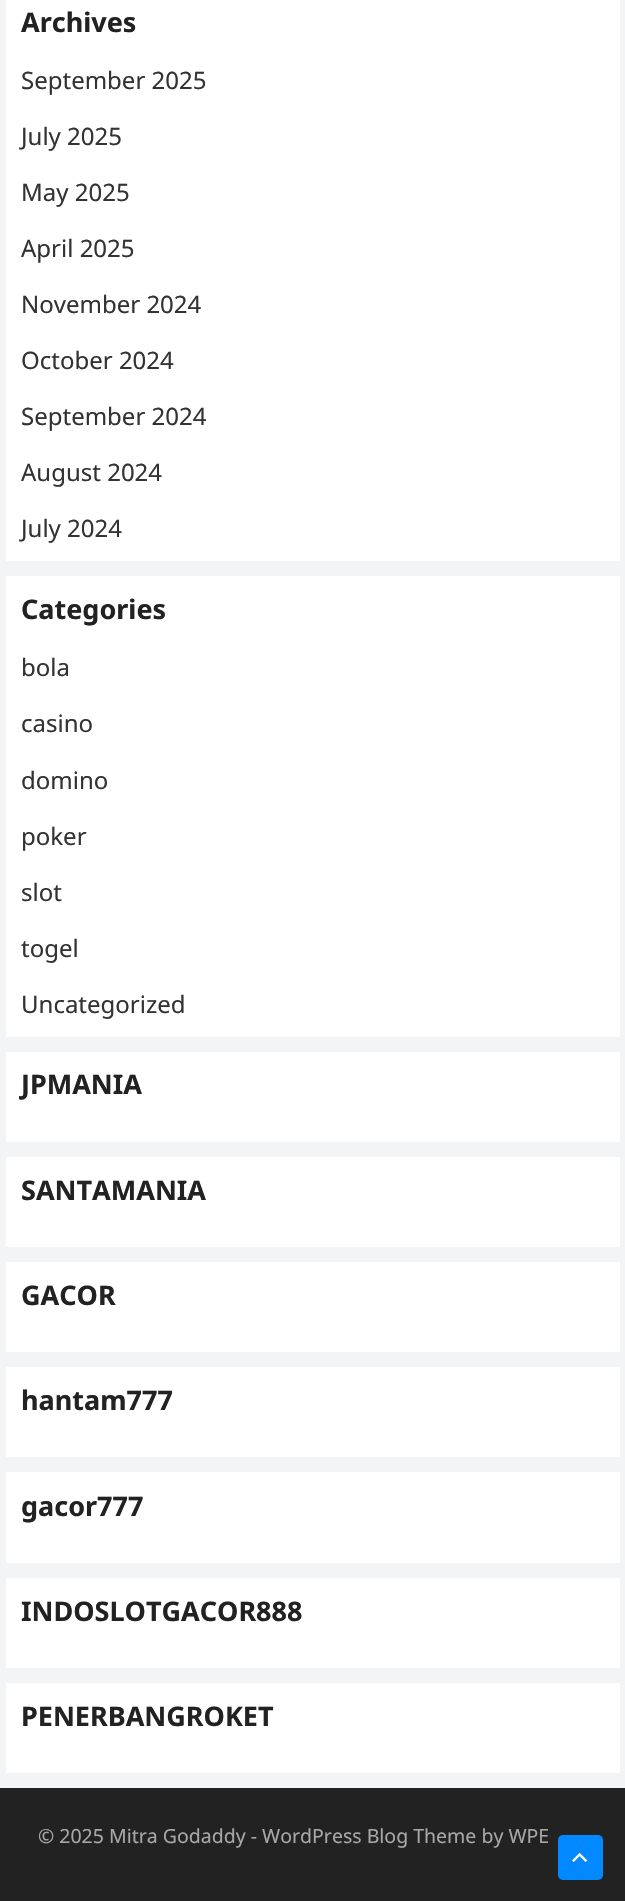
void draw(SkCanvas* c) {
SkPaint p;
p.setAntiAlias(true);
auto F=[&](const char* family, int weight, float size, bool italic = false){SkFontStyle style(weight, SkFontStyle::kNormal_Width,italic ? SkFontStyle::kItalic_Slant : SkFontStyle::kUpright_Slant);SkFont result(fontMgr->matchFamilyStyle(family, style), size);result.setSubpixel(true);return result;};
auto T=[&](const char* s, float x, float y, const SkFont& font){c->drawString(s, x, y, font, p);};
auto R=[&](float x, float y, float w, float h){c->drawRect(SkRect::MakeXYWH(x, y, w, h), p);};
auto Q=[&](float x, float y, float w, float h, float radius){c->drawRoundRect(SkRect::MakeXYWH(x, y, w, h), radius, radius, p);};
auto I=[&](const char* path, float x, float y, float w, float h){auto image = SkImages::DeferredFromEncodedData(SkData::MakeFromFileName(path));c->drawImageRect(image, SkRect::MakeXYWH(x, y, w, h), SkSamplingOptions());};
c->clear(0xfff3f4f5);
p.setColor(0xffffffff);
R(6,0,614,561);
auto f1 = F("Noto Sans",700,27);
p.setColor(0xff222222);
T("Archives",21,32,f1);
auto f2 = F("Noto Sans",400,24);
p.setColor(0xff333333);
T("September 2025",21,89,f2);
T("July 2025",21,145,f2);
T("May 2025",21,201,f2);
T("April 2025",21,257,f2);
T("November 2024",21,313,f2);
T("October 2024",21,369,f2);
T("September 2024",21,425,f2);
T("August 2024",21,481,f2);
T("July 2024",21,537,f2);
p.setColor(0xffffffff);
R(6,576,614,461);
p.setColor(0xff222222);
T("Categories",21,619,f1);
p.setColor(0xff333333);
T("bola",21,676,f2);
T("casino",21,732,f2);
T("domino",21,789,f2);
T("poker",21,845,f2);
T("slot",21,901,f2);
T("togel",21,957,f2);
T("Uncategorized",21,1013,f2);
p.setColor(0xffffffff);
R(6,1052,614,90);
p.setColor(0xff222222);
T("JPMANIA",21,1094,f1);
p.setColor(0xffffffff);
R(6,1157,614,90);
p.setColor(0xff222222);
T("SANTAMANIA",21,1200,f1);
p.setColor(0xffffffff);
R(6,1262,614,90);
p.setColor(0xff222222);
T("GACOR",21,1305,f1);
p.setColor(0xffffffff);
R(6,1367,614,90);
p.setColor(0xff222222);
T("hantam777",21,1410,f1);
p.setColor(0xffffffff);
R(6,1472,614,91);
p.setColor(0xff222222);
T("gacor777",21,1516,f1);
p.setColor(0xffffffff);
R(6,1578,614,90);
p.setColor(0xff222222);
T("INDOSLOTGACOR888",21,1621,f1);
p.setColor(0xffffffff);
R(6,1683,614,90);
p.setColor(0xff222222);
T("PENERBANGROKET",21,1726,f1);
R(0,1788,625,113);
auto f3 = F("Noto Sans",400,19.5);
p.setColor(0xffa7a7a7);
T("© 2025 Mitra Godaddy - WordPress Blog Theme by WPE",38,1843,f3);
p.setColor(0xff0389ff);
Q(558,1835,45,45,5);
I("1.png",572,1852,16,10);
}
